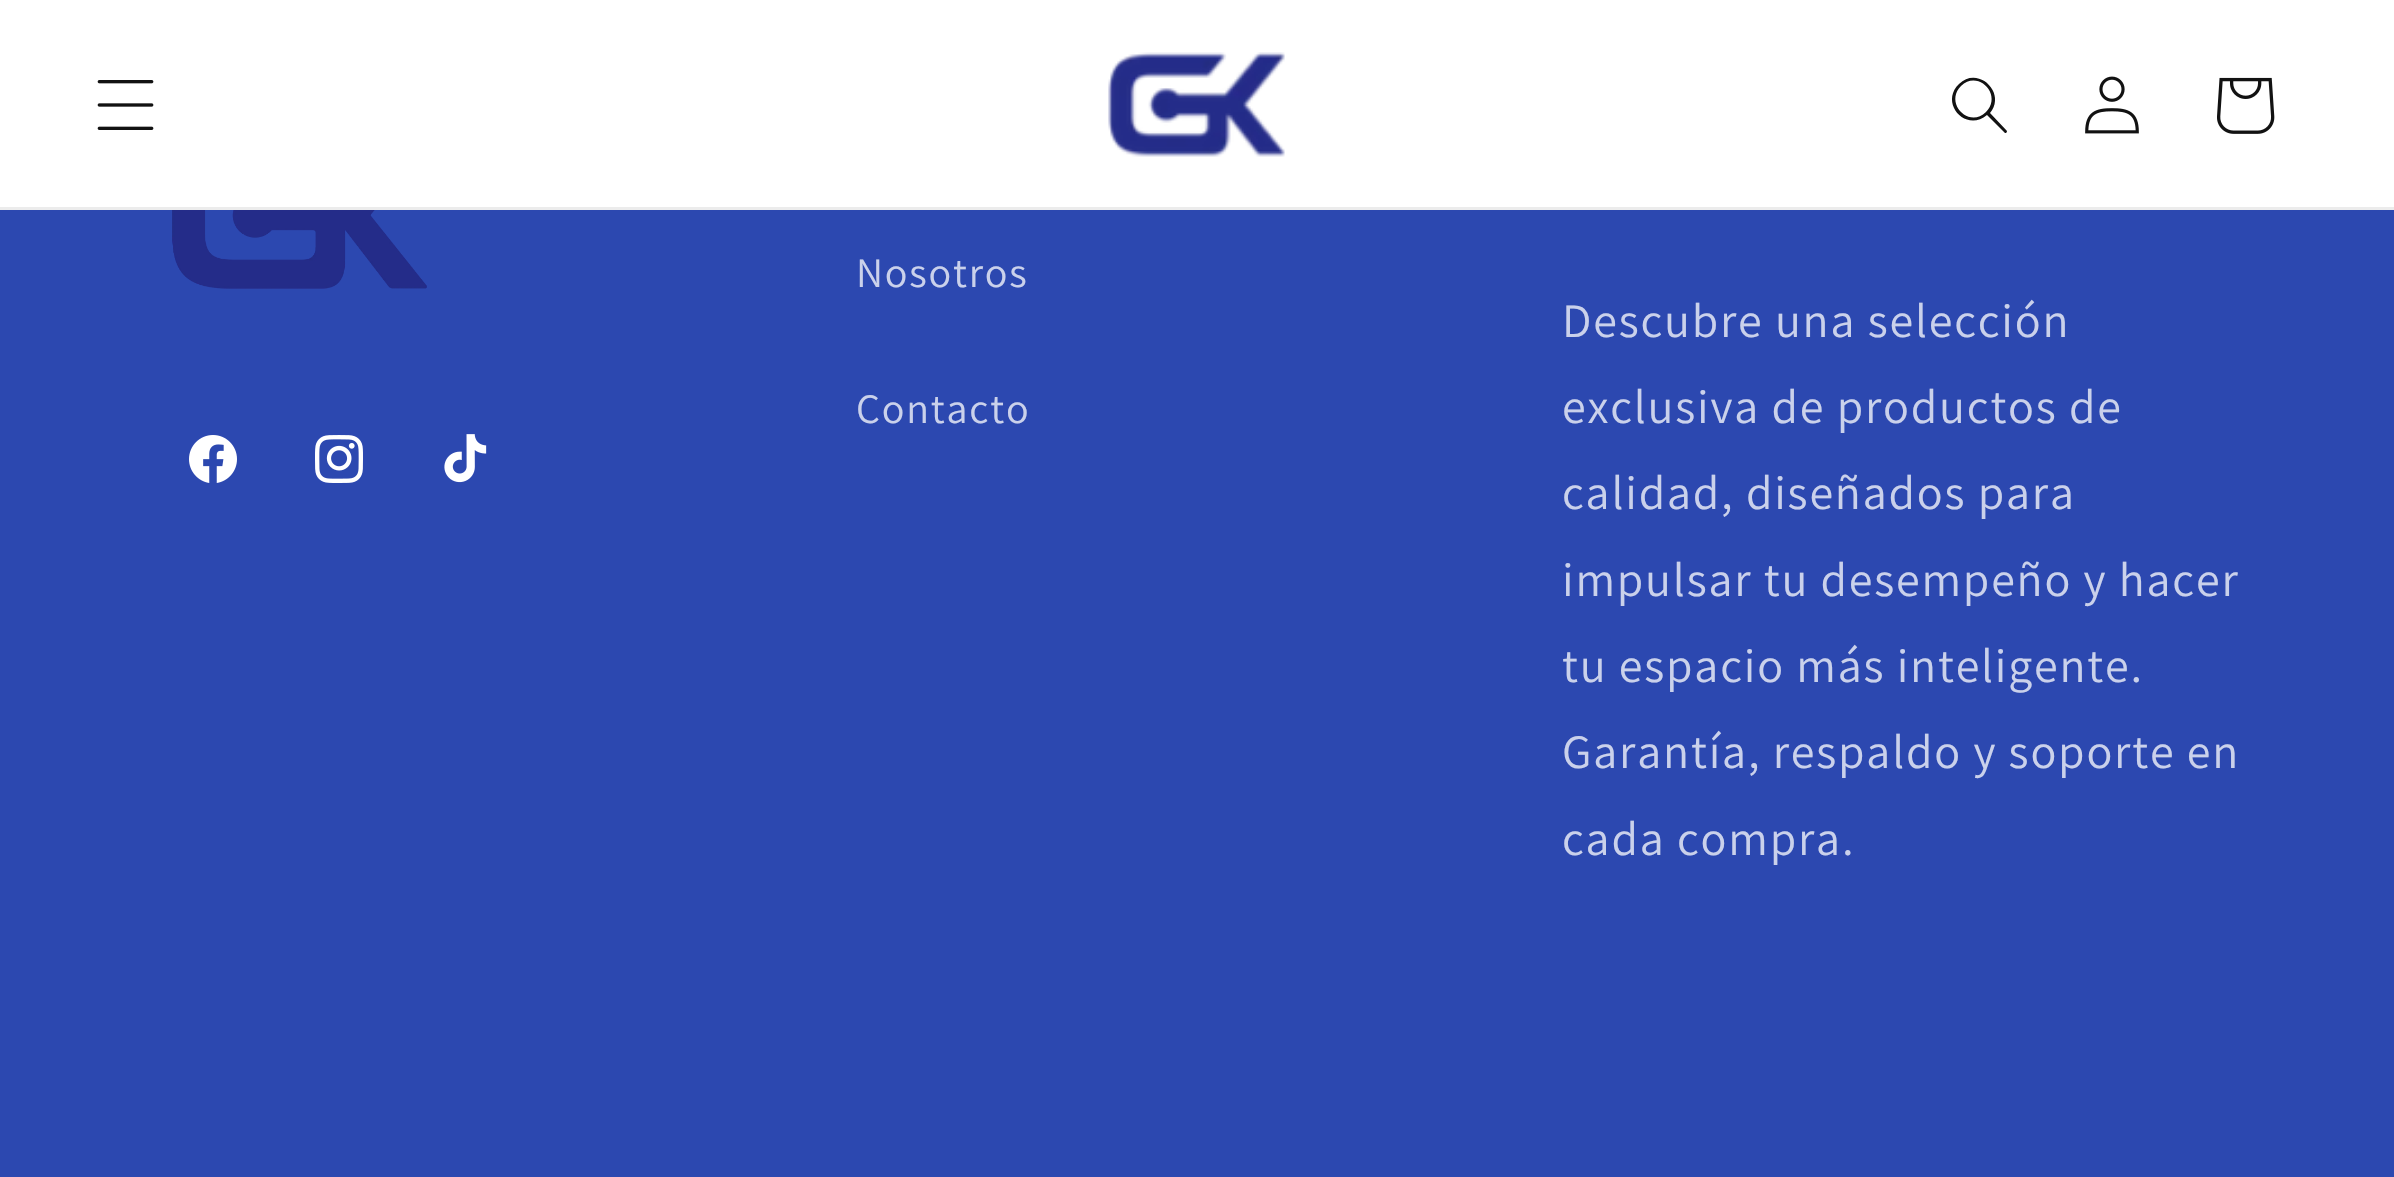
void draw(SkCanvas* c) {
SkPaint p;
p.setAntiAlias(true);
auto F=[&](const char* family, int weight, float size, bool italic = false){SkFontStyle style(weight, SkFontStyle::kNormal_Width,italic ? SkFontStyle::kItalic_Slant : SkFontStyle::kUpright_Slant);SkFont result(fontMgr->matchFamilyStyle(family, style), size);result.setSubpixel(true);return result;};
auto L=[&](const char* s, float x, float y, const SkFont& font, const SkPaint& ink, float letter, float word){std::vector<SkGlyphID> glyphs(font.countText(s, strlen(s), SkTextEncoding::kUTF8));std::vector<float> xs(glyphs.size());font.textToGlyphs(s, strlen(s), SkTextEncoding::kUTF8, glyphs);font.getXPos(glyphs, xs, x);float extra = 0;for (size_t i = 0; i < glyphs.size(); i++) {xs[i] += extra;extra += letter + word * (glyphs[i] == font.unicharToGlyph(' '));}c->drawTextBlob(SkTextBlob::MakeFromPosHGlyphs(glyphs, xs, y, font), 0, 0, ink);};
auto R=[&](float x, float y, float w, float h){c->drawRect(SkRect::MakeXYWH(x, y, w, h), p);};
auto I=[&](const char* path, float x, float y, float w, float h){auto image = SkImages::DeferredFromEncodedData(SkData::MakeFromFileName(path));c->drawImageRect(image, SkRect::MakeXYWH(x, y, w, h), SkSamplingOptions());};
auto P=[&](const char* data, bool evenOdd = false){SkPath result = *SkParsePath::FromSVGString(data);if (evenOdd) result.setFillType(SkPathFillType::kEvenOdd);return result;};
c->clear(0xff2c48b0);
p.setColor(0xffffffff);
R(0,0,2394,207);
p.setColor(0xffececec);
R(0,207,2394,3);
I("1.png",97,80,57,50);
I("2.png",1108,52,177,105);
p.setColor(0xff121212);
c->drawPath(P("M1986 112c-17 17-42-9-25-26c17-17 42 9 25 26m1 3c-21 18-48-12-28-31c19-19 48 9 31 29l17 18c0 2-2 3-3 1z",true),p);
I("3.png",2085,76,54,58);
I("4.png",2217,77,58,57);
I("5.png",172,210,255,79);
I("6.png",189,435,48,48);
I("7.png",315,435,48,48);
I("8.png",444,434,43,49);
auto f1 = F("Assistant",400,42);
p.setColor(0xffcad1eb);
L("Nosotros",856,287,f1,p,1.8,0);
L("Contacto",856,423,f1,p,1.8,0);
auto f2 = F("Assistant",400,48);
L("Descubre una selección",1562,337,f2,p,1.8,0);
L("exclusiva de productos de",1562,423,f2,p,1.8,0);
L("calidad, diseñados para",1562,509,f2,p,1.8,0);
L("impulsar tu desempeño y hacer",1562,596,f2,p,1.8,0);
L("tu espacio más inteligente.",1562,682,f2,p,1.8,0);
L("Garantía, respaldo y soporte en",1562,768,f2,p,1.8,0);
L("cada compra.",1562,855,f2,p,1.8,0);
}
